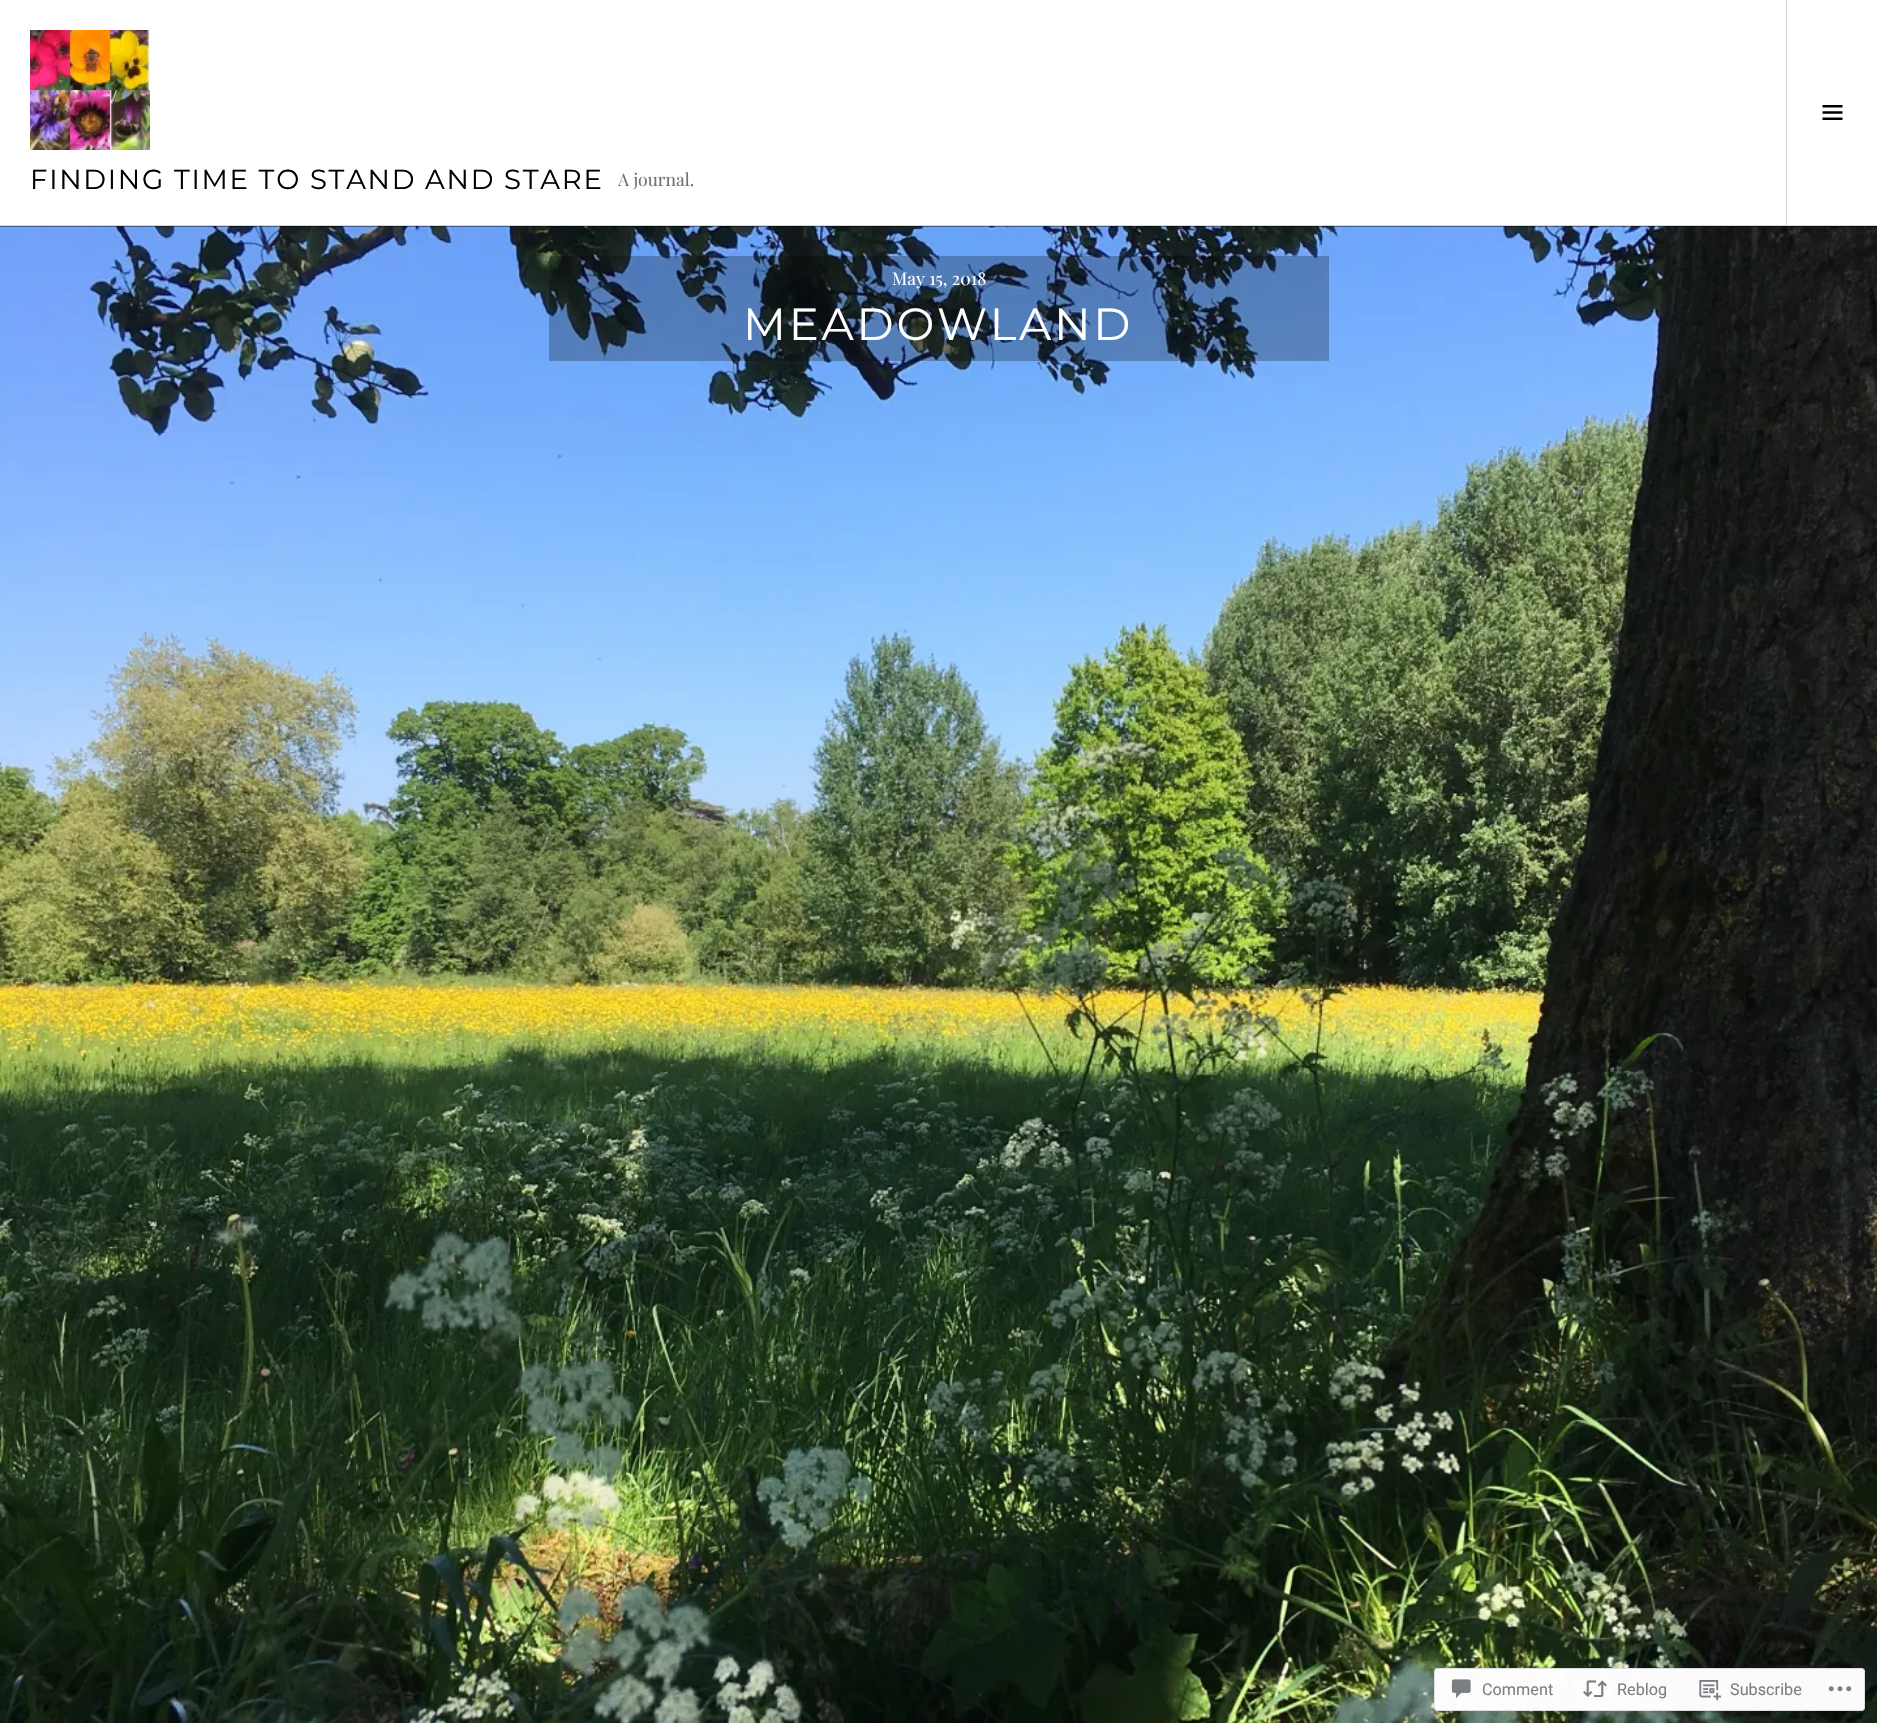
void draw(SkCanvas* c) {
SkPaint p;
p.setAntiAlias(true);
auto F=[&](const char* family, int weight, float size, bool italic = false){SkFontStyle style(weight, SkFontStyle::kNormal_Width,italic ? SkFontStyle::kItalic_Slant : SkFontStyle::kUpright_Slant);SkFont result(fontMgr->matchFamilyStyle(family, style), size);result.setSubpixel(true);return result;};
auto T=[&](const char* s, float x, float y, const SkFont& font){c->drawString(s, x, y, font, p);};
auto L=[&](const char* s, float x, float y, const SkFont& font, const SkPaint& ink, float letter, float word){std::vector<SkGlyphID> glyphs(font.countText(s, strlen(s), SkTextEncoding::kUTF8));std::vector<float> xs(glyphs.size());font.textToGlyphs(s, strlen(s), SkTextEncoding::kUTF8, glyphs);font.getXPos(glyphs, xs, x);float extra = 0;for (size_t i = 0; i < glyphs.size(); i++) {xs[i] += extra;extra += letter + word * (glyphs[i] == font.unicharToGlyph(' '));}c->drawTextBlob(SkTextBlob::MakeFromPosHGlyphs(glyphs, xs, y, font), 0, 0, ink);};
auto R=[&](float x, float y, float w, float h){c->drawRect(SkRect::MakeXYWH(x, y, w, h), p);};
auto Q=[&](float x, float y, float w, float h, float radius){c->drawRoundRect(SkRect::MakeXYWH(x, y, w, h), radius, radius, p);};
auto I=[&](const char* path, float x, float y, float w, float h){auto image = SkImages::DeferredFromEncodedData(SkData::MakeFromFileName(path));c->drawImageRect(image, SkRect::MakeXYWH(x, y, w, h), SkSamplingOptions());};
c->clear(0xffffffff);
p.setColor(0xffd8d8d8);
R(0,225,1877,1);
I("1.png",30,30,120,120);
auto f1 = F("Montserrat",400,27.5);
p.setColor(0xff000000);
L("FINDING TIME TO STAND AND STARE",30,189,f1,p,1.75,0);
auto f2 = F("Playfair Display",400,17.5);
p.setColor(0xff707070);
T("A journal.",618,186,f2);
p.setColor(0xffd8d8d8);
R(1786,0,1,225);
I("2.png",1822,105,21,15);
p.setColor(0xff000000);
R(0,226,1877,1);
I("3.png",0,226,1877,1497);
p.setColor(0x40000000);
R(549,256,780,105);
p.setColor(0xffffffff);
T("May 15, 2018",892,285,f2);
auto f3 = F("Montserrat",400,45);
L("MEADOWLAND",743,340,f3,p,2.75,0);
p.setColor(0xfaffffff);
Q(1434,1668,431,43,4);
p.setStroke(true);
p.setStrokeWidth(1);
p.setColor(0xfadcdcde);
c->drawRoundRect(SkRect::MakeXYWH(1434.5,1668.5,430,42),3.5,3.5,p);
I("4.png",1451,1679,20,19);
auto f4 = F("Roboto",400,16.25);
p.setStroke(false);
p.setColor(0xff7b7f84);
T("Comment",1482,1695,f4);
I("5.png",1583,1680,24,18);
T("Reblog",1617,1695,f4);
I("6.png",1699,1680,22,21);
T("Subscribe",1730,1695,f4);
I("7.png",1828,1686,24,6);
}
